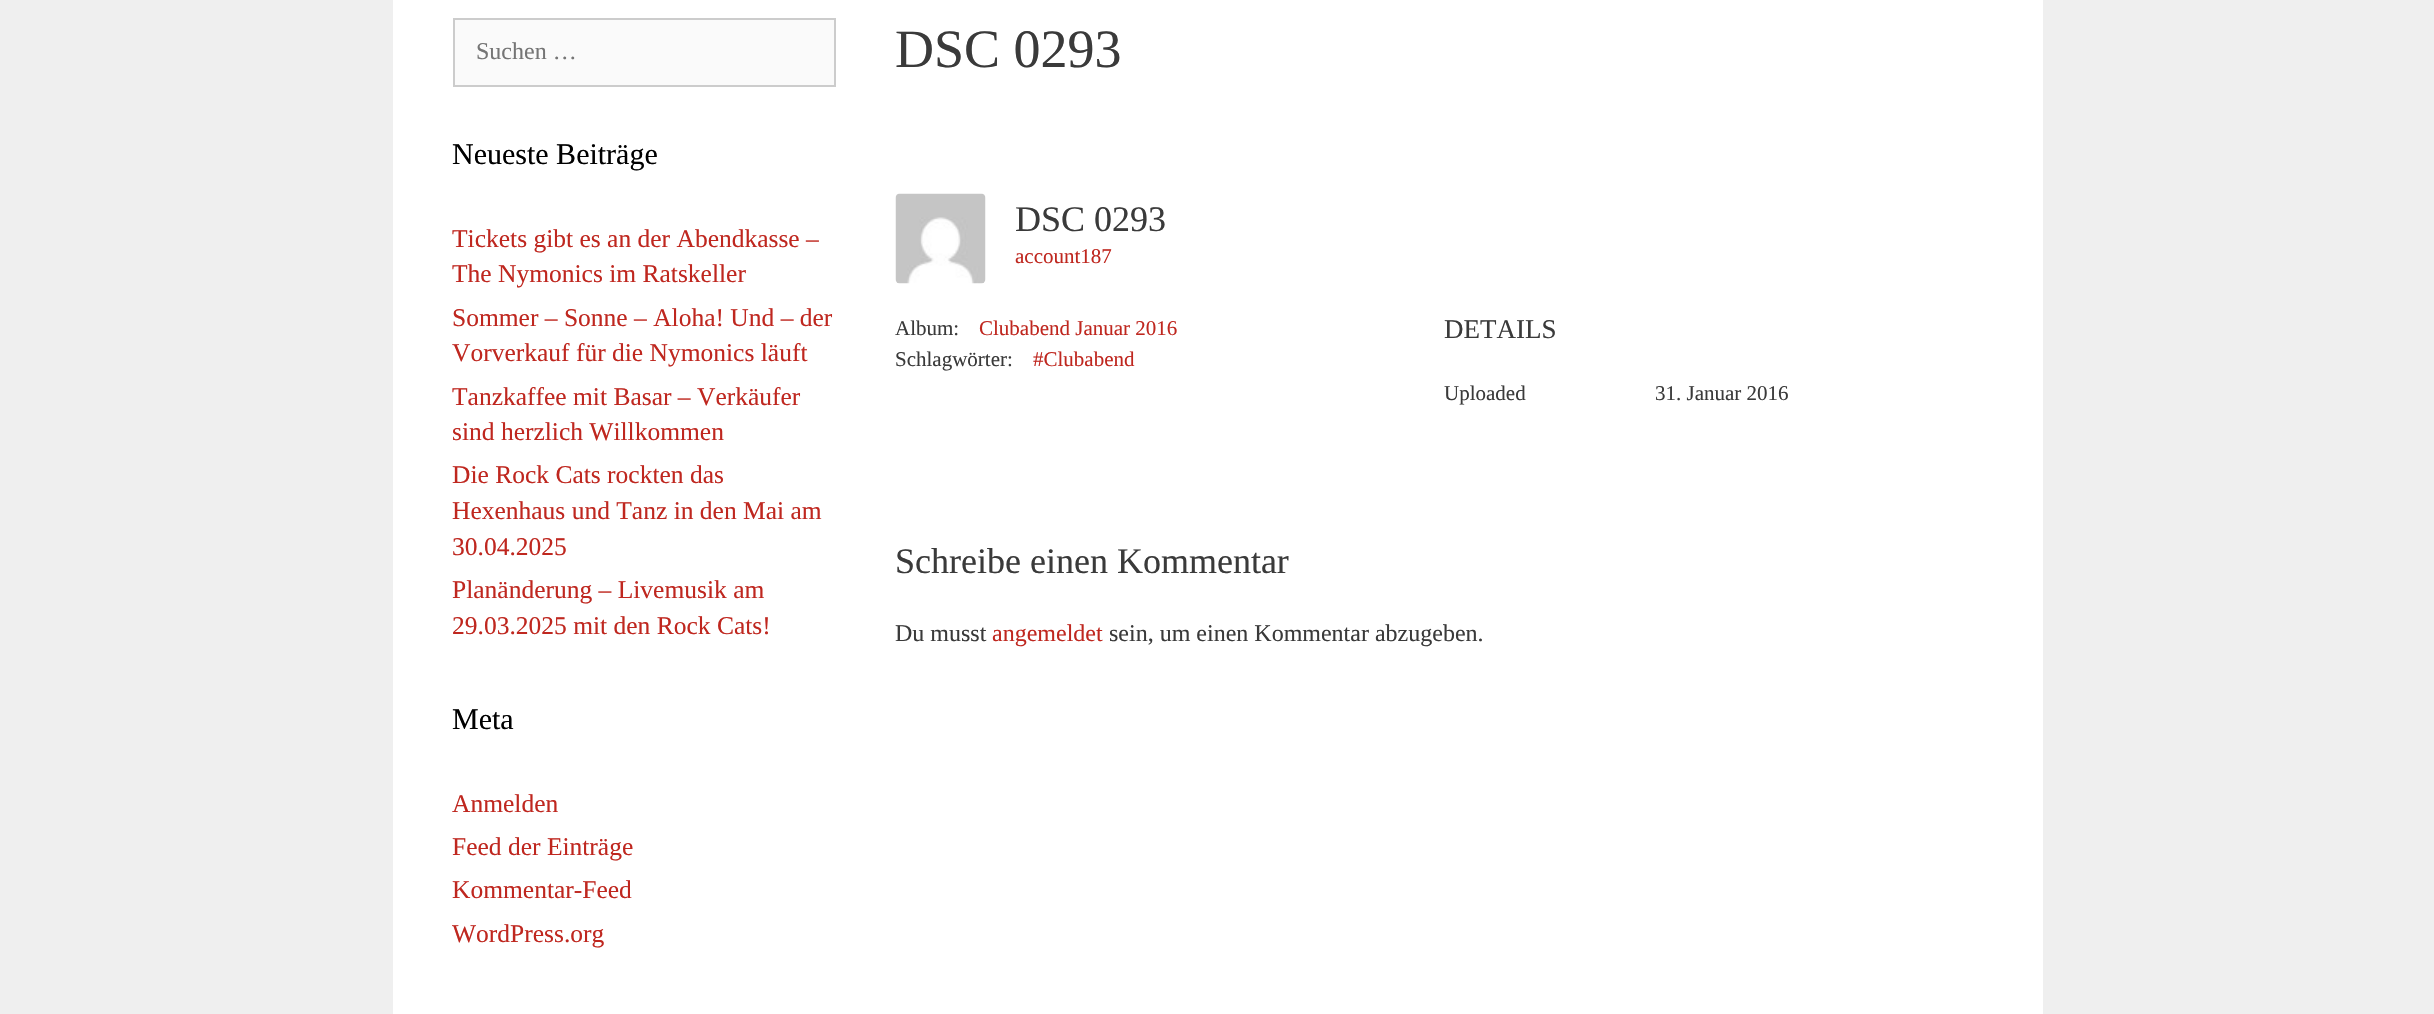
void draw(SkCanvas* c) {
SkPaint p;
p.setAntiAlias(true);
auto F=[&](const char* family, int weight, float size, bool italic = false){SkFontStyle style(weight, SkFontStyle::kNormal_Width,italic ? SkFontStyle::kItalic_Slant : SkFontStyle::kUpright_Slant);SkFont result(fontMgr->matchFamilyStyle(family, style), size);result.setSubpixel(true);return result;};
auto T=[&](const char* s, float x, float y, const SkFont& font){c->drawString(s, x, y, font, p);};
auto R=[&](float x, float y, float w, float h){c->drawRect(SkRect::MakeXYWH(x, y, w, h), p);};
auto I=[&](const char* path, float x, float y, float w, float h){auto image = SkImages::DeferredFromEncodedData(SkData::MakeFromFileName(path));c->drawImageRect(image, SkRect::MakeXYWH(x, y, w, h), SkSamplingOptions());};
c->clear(0xffefefef);
p.setColor(0xffffffff);
R(393,0,1650,1014);
p.setColor(0xfffafafa);
c->drawRect(SkRect::MakeXYWH(454,19,381,67),p);
p.setStroke(true);
p.setStrokeWidth(2);
p.setColor(0xffcccccc);
c->drawRect(SkRect::MakeXYWH(454,19,381,67),p);
auto f1 = F("Liberation Serif",400,24);
p.setStroke(false);
p.setColor(0xff757575);
T("Suchen …",476,59,f1);
auto f2 = F("Liberation Serif",400,30);
p.setColor(0xff000000);
T("Neueste Beiträge",452,164,f2);
auto f3 = F("Liberation Serif",400,25.5);
p.setColor(0xffbf271f);
T("Tickets gibt es an der Abendkasse –",452,247,f3);
T("The Nymonics im Ratskeller",452,282,f3);
T("Sommer – Sonne – Aloha! Und – der",452,326,f3);
T("Vorverkauf für die Nymonics läuft",452,361,f3);
T("Tanzkaffee mit Basar – Verkäufer",452,405,f3);
T("sind herzlich Willkommen",452,440,f3);
T("Die Rock Cats rockten das",452,483,f3);
T("Hexenhaus und Tanz in den Mai am",452,519,f3);
T("30.04.2025",452,555,f3);
T("Planänderung – Livemusik am",452,598,f3);
T("29.03.2025 mit den Rock Cats!",452,634,f3);
p.setColor(0xff000000);
T("Meta",452,729,f2);
p.setColor(0xffbf271f);
T("Anmelden",452,812,f3);
T("Feed der Einträge",452,855,f3);
T("Kommentar-Feed",452,898,f3);
T("WordPress.org",452,942,f3);
auto f4 = F("Liberation Serif",400,54);
p.setColor(0xff3a3a3a);
T("DSC 0293",895,67,f4);
I("1.png",895,193,91,91);
c->save();
c->clipRect(SkRect::MakeXYWH(1016,200,168,43));
auto f5 = F("Liberation Serif",400,36);
T("DSC 0293",1015,231,f5);
c->restore();
auto f6 = F("Liberation Serif",400,21);
p.setColor(0xffbf271f);
T("account187",1015,263,f6);
p.setColor(0xff3a3a3a);
T("Album:",895,335,f6);
p.setColor(0xffbf271f);
T("Clubabend Januar 2016",979,335,f6);
p.setColor(0xff3a3a3a);
T("Schlagwörter:",895,366,f6);
p.setColor(0xffbf271f);
T("#Clubabend",1033,366,f6);
auto f7 = F("Liberation Serif",400,27);
p.setColor(0xff3a3a3a);
T("DETAILS",1444,338,f7);
T("Uploaded",1444,400,f6);
T("31. Januar 2016",1655,400,f6);
T("Schreibe einen Kommentar",895,573,f5);
T("Du musst",895,641,f1);
p.setColor(0xffbf271f);
T("angemeldet",992,641,f1);
p.setColor(0xff3a3a3a);
T("sein, um einen Kommentar abzugeben.",1109,641,f1);
}
